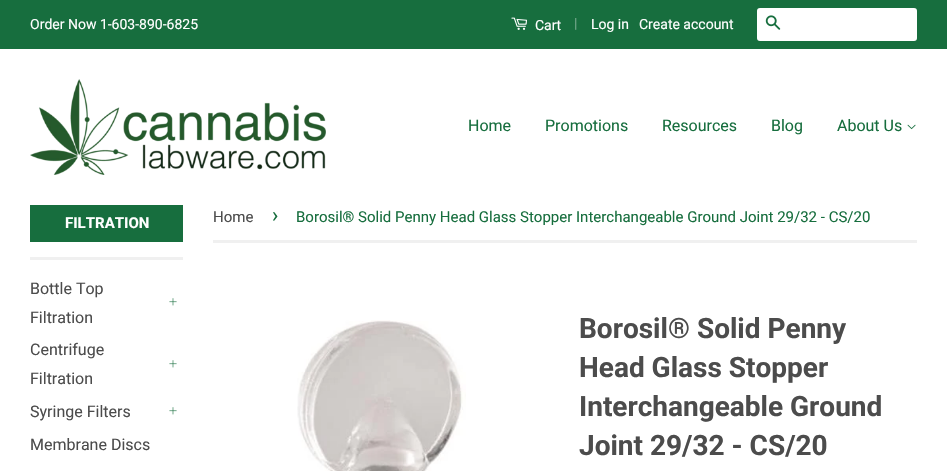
void draw(SkCanvas* c) {
SkPaint p;
p.setAntiAlias(true);
auto F=[&](const char* family, int weight, float size, bool italic = false){SkFontStyle style(weight, SkFontStyle::kNormal_Width,italic ? SkFontStyle::kItalic_Slant : SkFontStyle::kUpright_Slant);SkFont result(fontMgr->matchFamilyStyle(family, style), size);result.setSubpixel(true);return result;};
auto T=[&](const char* s, float x, float y, const SkFont& font){c->drawString(s, x, y, font, p);};
auto R=[&](float x, float y, float w, float h){c->drawRect(SkRect::MakeXYWH(x, y, w, h), p);};
auto Q=[&](float x, float y, float w, float h, float radius){c->drawRoundRect(SkRect::MakeXYWH(x, y, w, h), radius, radius, p);};
auto I=[&](const char* path, float x, float y, float w, float h){auto image = SkImages::DeferredFromEncodedData(SkData::MakeFromFileName(path));c->drawImageRect(image, SkRect::MakeXYWH(x, y, w, h), SkSamplingOptions());};
c->clear(0xffffffff);
p.setColor(0xff176e3e);
R(0,0,947,49);
auto f1 = F("Roboto",400,14);
p.setColor(0xffffffff);
T("Order Now 1-603-890-6825",30,29,f1);
I("1.png",511,17,16,13);
T("Cart",535,30,f1);
p.setColor(0xff74a88b);
T("|",574,28,f1);
p.setColor(0xffffffff);
T("Log in",591,29,f1);
T("Create account",639,29,f1);
Q(757,8,160,33,3);
I("2.png",765,15,16,15);
I("3.png",30,79,296,96);
auto f2 = F("Roboto",400,16);
p.setColor(0xff176e3e);
T("Home",468,131,f2);
T("Promotions",545,131,f2);
T("Resources",662,131,f2);
T("Blog",771,131,f2);
T("About Us",837,131,f2);
I("4.png",907,124,9,6);
p.setColor(0xfff0f0f0);
R(30,257,153,3);
p.setColor(0xff176e3e);
R(30,205,153,37);
auto f3 = F("Roboto",700,15);
p.setColor(0xffffffff);
T("FILTRATION",65,228,f3);
p.setColor(0xff4c4c4c);
T("Bottle Top",30,294,f2);
T("Filtration",30,323,f2);
I("5.png",169,298,8,8);
T("Centrifuge",30,355,f2);
T("Filtration",30,384,f2);
I("5.png",169,360,8,8);
T("Syringe Filters",30,417,f2);
I("5.png",169,407,8,8);
T("Membrane Discs",30,450,f2);
p.setColor(0xfff0f0f0);
R(213,240,704,3);
auto f4 = F("Roboto",400,15);
p.setColor(0xff4c4c4c);
T("Home",213,222,f4);
auto f5 = F("Roboto",400,21);
p.setColor(0xff176e3e);
T("›",272,222,f5);
T("Borosil® Solid Penny Head Glass Stopper Interchangeable Ground Joint 29/32 - CS/20",296,222,f4);
I("6.png",297,320,169,151);
auto f6 = F("Roboto",700,28);
p.setColor(0xff4c4c4c);
T("Borosil® Solid Penny",579,338,f6);
T("Head Glass Stopper",579,377,f6);
T("Interchangeable Ground",579,416,f6);
T("Joint 29/32 - CS/20",579,455,f6);
}
